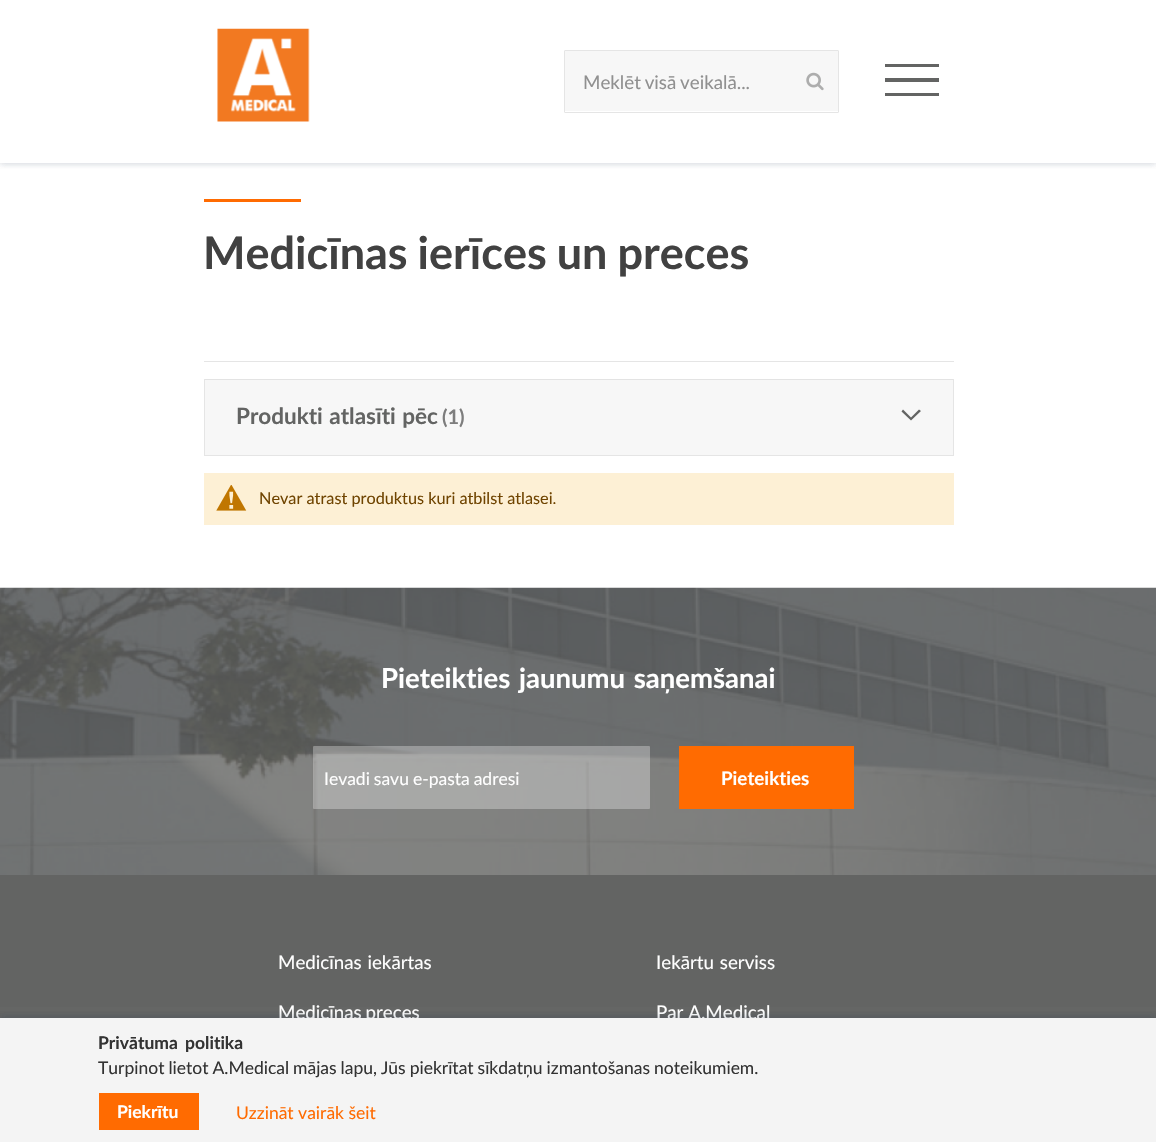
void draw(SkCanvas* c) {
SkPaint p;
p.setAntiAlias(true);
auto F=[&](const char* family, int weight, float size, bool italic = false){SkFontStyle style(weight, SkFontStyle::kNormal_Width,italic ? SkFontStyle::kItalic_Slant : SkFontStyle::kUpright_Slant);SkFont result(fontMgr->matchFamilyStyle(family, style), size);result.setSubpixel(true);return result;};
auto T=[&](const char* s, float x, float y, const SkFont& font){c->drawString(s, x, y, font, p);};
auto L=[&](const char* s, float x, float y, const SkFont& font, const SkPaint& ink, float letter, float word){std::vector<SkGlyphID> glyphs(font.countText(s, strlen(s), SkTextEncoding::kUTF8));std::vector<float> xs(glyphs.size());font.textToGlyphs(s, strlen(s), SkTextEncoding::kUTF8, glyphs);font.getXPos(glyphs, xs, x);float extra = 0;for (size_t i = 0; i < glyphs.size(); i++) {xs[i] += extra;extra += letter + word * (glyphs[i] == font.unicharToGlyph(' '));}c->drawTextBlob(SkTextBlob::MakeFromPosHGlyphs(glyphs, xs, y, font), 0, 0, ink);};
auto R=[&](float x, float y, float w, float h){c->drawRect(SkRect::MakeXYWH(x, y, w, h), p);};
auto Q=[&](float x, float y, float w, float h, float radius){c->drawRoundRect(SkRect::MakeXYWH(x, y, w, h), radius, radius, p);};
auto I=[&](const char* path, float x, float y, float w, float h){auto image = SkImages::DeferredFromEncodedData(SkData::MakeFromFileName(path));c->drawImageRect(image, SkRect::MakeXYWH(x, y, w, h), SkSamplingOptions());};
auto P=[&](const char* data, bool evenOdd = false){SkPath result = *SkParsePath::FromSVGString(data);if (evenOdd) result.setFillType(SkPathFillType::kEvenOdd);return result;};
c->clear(0xffffffff);
p.setColor(0x1a1b2f4e);
p.setMaskFilter(SkMaskFilter::MakeBlur(kNormal_SkBlurStyle, 3));
c->drawRect(SkRect::MakeXYWH(0,1,1156,163),p);
p.setMaskFilter(nullptr);
p.setMaskFilter(SkMaskFilter::MakeBlur(kNormal_SkBlurStyle, 3));
c->drawRect(SkRect::MakeXYWH(0,1,1156,163),p);
p.setMaskFilter(nullptr);
p.setColor(0xffffffff);
R(0,0,1156,163);
I("1.png",217,28,93,94);
p.setColor(0xfff7f7f7);
R(565,51,273,60);
p.setStroke(true);
p.setStrokeWidth(1);
p.setColor(0xffe5e5e5);
c->drawRoundRect(SkRect::MakeXYWH(564.5,50.5,274,62),.5,.5,p);
auto f1 = F("Lato",400,18.75);
p.setStroke(false);
p.setColor(0xff909090);
L("Meklēt visā veikalā...",583,89,f1,p,0,-1);
I("2.png",806,72,18,19);
p.setColor(0xff636463);
c->drawPath(P("M885 67v-3h54v3zm0 15v-4h54v4zm0 14v-3h54v3z"),p);
p.setColor(0xffff6b01);
R(204,199,97,3);
auto f2 = F("Lato",700,45);
p.setColor(0xff414141);
L("Medicīnas ierīces un preces",203,269,f2,p,0,-1);
p.setColor(0xffe5e5e5);
R(204,361,750,1);
R(204,455,750,1);
R(953,379,1,76);
R(204,379,1,76);
p.setColor(0xfff7f7f7);
R(205,380,748,75);
p.setColor(0xffe3e3e3);
R(205,379,748,1);
auto f3 = F("Lato",700,22.5);
p.setColor(0xff636463);
L("Produkti atlasīti pēc",236,424,f3,p,0,1);
auto f4 = F("Lato",700,20);
p.setColor(0xff7d7d7d);
T("(1)",442,424,f4);
p.setColor(0xff636463);
c->drawPath(P("M911 417.5l-8-8l-1.5 2l9.5 9l10-9.5l-2-1.5z"),p);
p.setColor(0xfffdf0d5);
R(204,473,750,52);
I("3.png",216,485,31,26);
auto f5 = F("Lato",400,16.25);
p.setColor(0xff6f4400);
T("Nevar atrast produktus kuri atbilst atlasei.",259,504,f5);
p.setColor(0xff636463);
R(0,875,1156,143);
I("4.png",0,587,1156,288);
auto f6 = F("Lato",700,27.5);
p.setColor(0xffffffff);
L("Pieteikties jaunumu saņemšanai",381,688,f6,p,0,2);
p.setColor(0x4dffffff);
Q(313,746,337,63,1);
auto f7 = F("Lato",400,17.5);
p.setColor(0xffffffff);
L("Ievadi savu e-pasta adresi",324,785,f7,p,0,-.5);
p.setColor(0xffff6b01);
R(679,746,175,63);
auto f8 = F("Lato",700,18.75);
p.setColor(0xffffffff);
T("Pieteikties",721,785,f8);
L("Medicīnas iekārtas",278,969,f1,p,0,1);
L("Iekārtu serviss",656,969,f1,p,0,1);
L("Medicīnas preces",278,1019,f1,p,0,-1);
T("Par A.Medical",656,1019,f1);
p.setColor(0x1a1b2f4e);
p.setMaskFilter(SkMaskFilter::MakeBlur(kNormal_SkBlurStyle, 3));
c->drawRect(SkRect::MakeXYWH(0,1016,1156,125),p);
p.setMaskFilter(nullptr);
p.setMaskFilter(SkMaskFilter::MakeBlur(kNormal_SkBlurStyle, 3));
c->drawRect(SkRect::MakeXYWH(0,1016,1156,125),p);
p.setMaskFilter(nullptr);
p.setColor(0xfff4f4f4);
R(0,1018,1156,124);
auto f9 = F("Lato",700,17.5);
p.setColor(0xff333333);
L("Privātuma politika",98,1049,f9,p,0,3);
L("Turpinot lietot A.Medical mājas lapu, Jūs piekrītat sīkdatņu izmantošanas noteikumiem.",98,1074,f7,p,0,-.5);
p.setColor(0xffff6b01);
R(99,1093,100,37);
p.setColor(0xffffffff);
T("Piekrītu",117,1118,f9);
p.setColor(0xffff6b01);
T("Uzzināt vairāk šeit",236,1119,f7);
}
